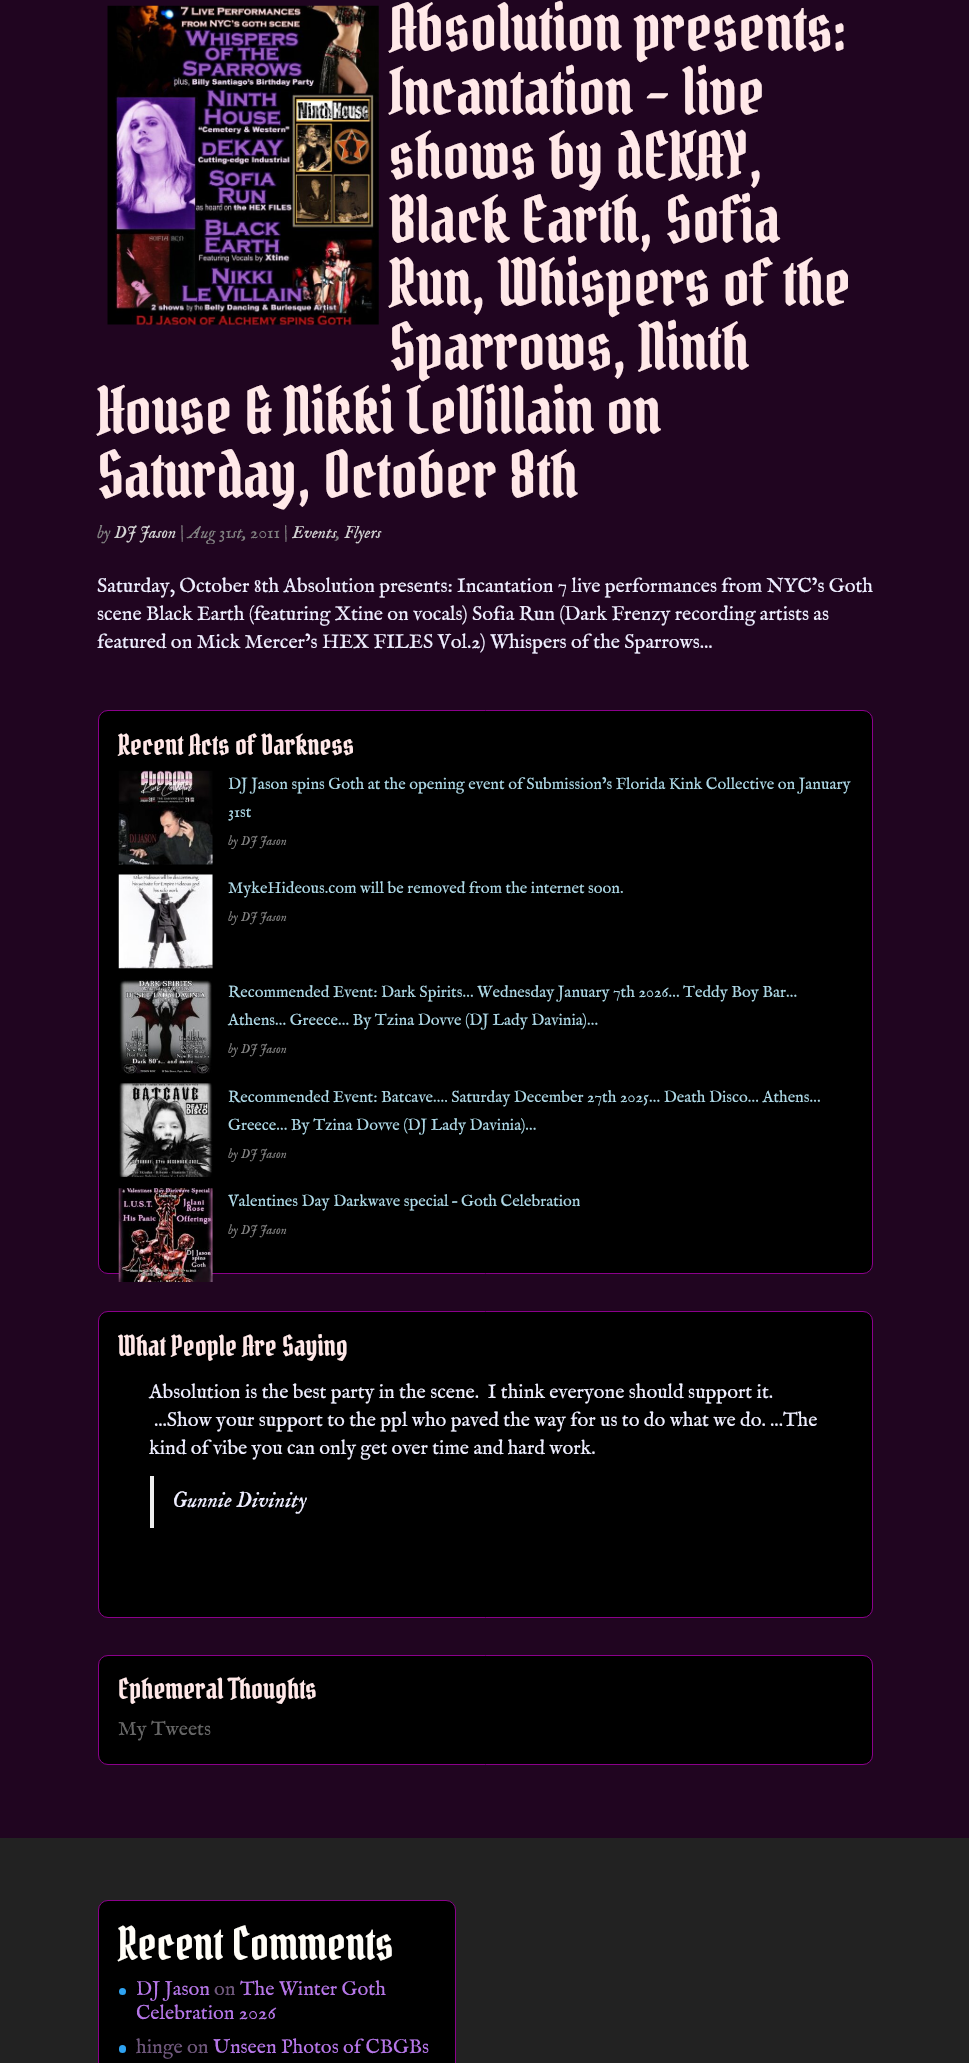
void draw(SkCanvas* c) {
SkPaint p;
p.setAntiAlias(true);
auto F=[&](const char* family, int weight, float size, bool italic = false){SkFontStyle style(weight, SkFontStyle::kNormal_Width,italic ? SkFontStyle::kItalic_Slant : SkFontStyle::kUpright_Slant);SkFont result(fontMgr->matchFamilyStyle(family, style), size);result.setSubpixel(true);return result;};
auto T=[&](const char* s, float x, float y, const SkFont& font){c->drawString(s, x, y, font, p);};
auto R=[&](float x, float y, float w, float h){c->drawRect(SkRect::MakeXYWH(x, y, w, h), p);};
auto Q=[&](float x, float y, float w, float h, float radius){c->drawRoundRect(SkRect::MakeXYWH(x, y, w, h), radius, radius, p);};
auto I=[&](const char* path, float x, float y, float w, float h){auto image = SkImages::DeferredFromEncodedData(SkData::MakeFromFileName(path));c->drawImageRect(image, SkRect::MakeXYWH(x, y, w, h), SkSamplingOptions());};
c->clear(0xff200520);
auto f1 = F("Pirata One",400,63.75);
p.setColor(0xffffe8e8);
T("Absolution presents:",389,51,f1);
T("Incantation – live",389,115,f1);
T("shows by dEKAY,",389,179,f1);
T("Black Earth, Sofia",389,243,f1);
T("Run, Whispers of the",389,306,f1);
T("Sparrows, Ninth",389,370,f1);
T("House & Nikki LeVillain on",97,434,f1);
T("Saturday, October 8th",97,498,f1);
I("1.png",107,5,272,320);
auto f2 = F("IM FELL English",400,17.5,true);
p.setColor(0xff808080);
T("by",97,538,f2);
p.setColor(0xffd3d3d3);
T("DJ Jason",114,538,f2);
p.setColor(0xff808080);
T("| Aug 31st, 2011 |",180,538,f2);
p.setColor(0xffd3d3d3);
T("Events",292,538,f2);
T("Flyers",344,538,f2);
p.setColor(0xff808080);
T(",",336,538,f2);
auto f3 = F("IM FELL English",400,20);
p.setColor(0xffeeeeff);
T("Saturday, October 8th Absolution presents: Incantation 7 live performances from NYC’s Goth",97,592,f3);
T("scene Black Earth (featuring Xtine on vocals) Sofia Run (Dark Frenzy recording artists as",97,620,f3);
T("featured on Mick Mercer’s HEX FILES Vol.2) Whispers of the Sparrows...",97,648,f3);
p.setColor(0xff000000);
c->drawRoundRect(SkRect::MakeXYWH(98.5,710.5,774,563),9.5,9.5,p);
p.setStroke(true);
p.setStrokeWidth(1);
p.setColor(0xff8b008b);
c->drawRoundRect(SkRect::MakeXYWH(98.5,710.5,774,563),9.5,9.5,p);
auto f4 = F("Pirata One",400,28);
p.setStroke(false);
p.setColor(0xffffe8e8);
T("Recent Acts of Darkness",118,755,f4);
I("2.png",118,770,95,95);
auto f5 = F("IM FELL English",400,16.25);
p.setColor(0xffadd8e6);
T("DJ Jason spins Goth at the opening event of Submission’s Florida Kink Collective on January",228,789,f5);
T("31st",228,817,f5);
auto f6 = F("IM FELL English",400,13,true);
p.setColor(0xff808080);
T("by DJ Jason",228,845,f6);
I("3.png",118,874,95,95);
p.setColor(0xffadd8e6);
T("MykeHideous.com will be removed from the internet soon.",228,893,f5);
p.setColor(0xff808080);
T("by DJ Jason",228,921,f6);
I("4.png",119,979,93,95);
p.setColor(0xffadd8e6);
T("Recommended Event: Dark Spirits… Wednesday January 7th 2026… Teddy Boy Bar…",228,997,f5);
T("Athens… Greece… By Tzina Dovve (DJ Lady Davinia)…",228,1025,f5);
p.setColor(0xff808080);
T("by DJ Jason",228,1053,f6);
I("5.png",119,1083,94,94);
p.setColor(0xffadd8e6);
T("Recommended Event: Batcave…. Saturday December 27th 2025… Death Disco… Athens…",228,1102,f5);
T("Greece… By Tzina Dovve (DJ Lady Davinia)…",228,1130,f5);
p.setColor(0xff808080);
T("by DJ Jason",228,1158,f6);
I("6.png",118,1188,95,94);
p.setColor(0xffadd8e6);
T("Valentines Day Darkwave special – Goth Celebration",228,1206,f5);
p.setColor(0xff808080);
T("by DJ Jason",228,1234,f6);
p.setColor(0xff000000);
c->drawRoundRect(SkRect::MakeXYWH(98.5,1311.5,774,306),9.5,9.5,p);
p.setStroke(true);
p.setColor(0xff8b008b);
c->drawRoundRect(SkRect::MakeXYWH(98.5,1311.5,774,306),9.5,9.5,p);
p.setStroke(false);
p.setColor(0xffffe8e8);
T("What People Are Saying",118,1356,f4);
p.setColor(0xffeeeeff);
T("Absolution is the best party in the scene.  I think everyone should support it.",149,1398,f3);
T("...Show your support to the ppl who paved the way for us to do what we do. ...The",154,1426,f3);
T("kind of vibe you can only get over time and hard work.",149,1454,f3);
p.setColor(0xffefefef);
R(150,1476,4,52);
auto f7 = F("IM FELL English",400,22,true);
p.setColor(0xffeeeeff);
T("Gunnie Divinity",172,1507,f7);
p.setColor(0xff000000);
c->drawRoundRect(SkRect::MakeXYWH(98.5,1655.5,774,109),9.5,9.5,p);
p.setStroke(true);
p.setColor(0xff8b008b);
c->drawRoundRect(SkRect::MakeXYWH(98.5,1655.5,774,109),9.5,9.5,p);
p.setStroke(false);
p.setColor(0xffffe8e8);
T("Ephemeral Thoughts",118,1699,f4);
p.setColor(0xff666666);
T("My Tweets",118,1735,f3);
p.setColor(0xff222222);
R(0,1838,969,225);
p.setColor(0xff000000);
c->drawRoundRect(SkRect::MakeXYWH(98.5,1900.5,357,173),9.5,9.5,p);
p.setStroke(true);
p.setColor(0xff8b008b);
c->drawRoundRect(SkRect::MakeXYWH(98.5,1900.5,357,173),9.5,9.5,p);
auto f8 = F("Pirata One",400,45);
p.setStroke(false);
p.setColor(0xfffffdf7);
T("Recent Comments",118,1960,f8);
p.setColor(0xff2ea3f2);
c->drawCircle(122.5,1991.5,3.5,p);
p.setColor(0xffb676e8);
T("DJ Jason",136,1995,f3);
p.setColor(0xff6f577c);
T("on",214,1995,f3);
p.setColor(0xffb676e8);
T("The Winter Goth",240,1995,f3);
T("Celebration 2026",136,2019,f3);
p.setColor(0xff2ea3f2);
Q(119,2045,7,8,3.5);
p.setColor(0xff6f577c);
T("hinge on",136,2053,f3);
p.setColor(0xffb676e8);
T("Unseen Photos of CBGBs",213,2053,f3);
}
